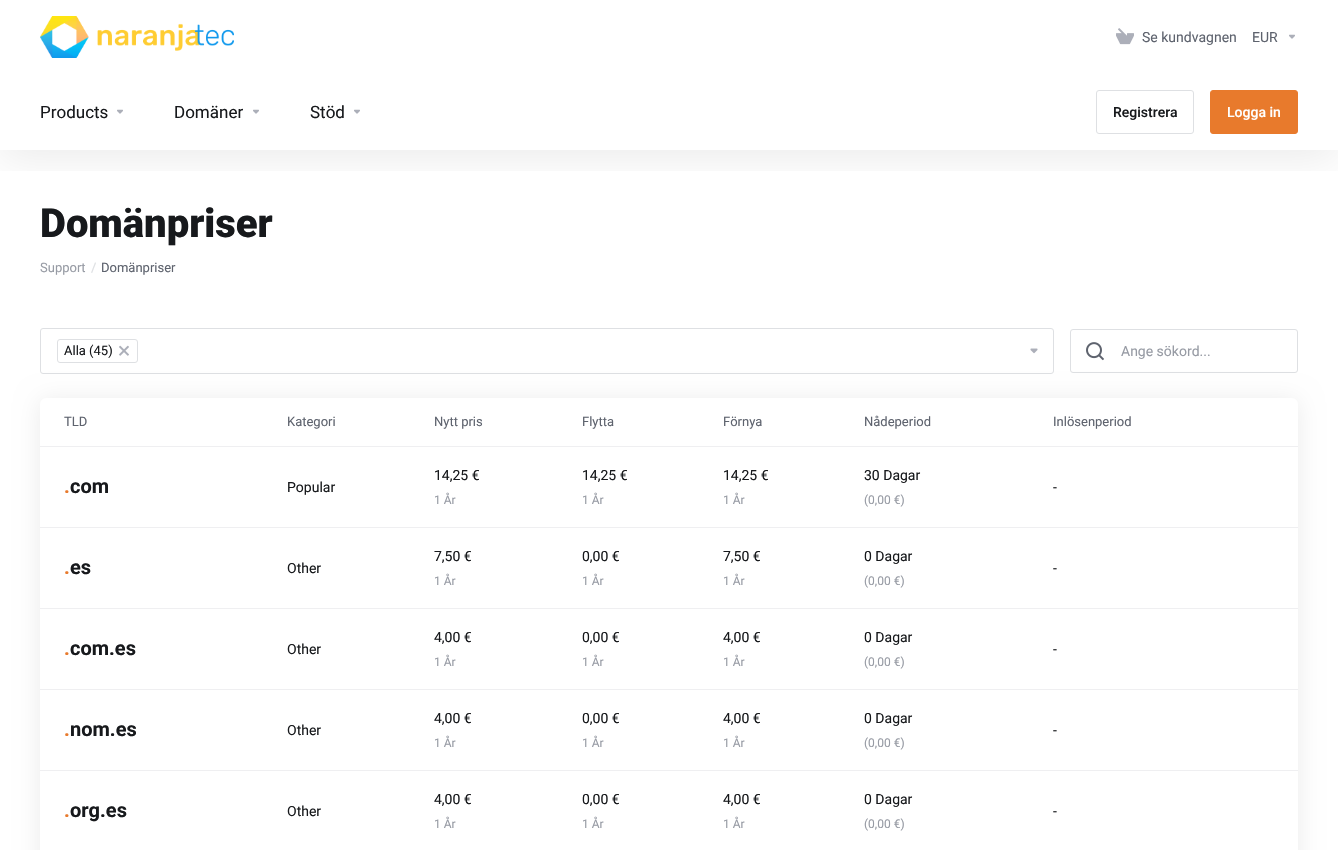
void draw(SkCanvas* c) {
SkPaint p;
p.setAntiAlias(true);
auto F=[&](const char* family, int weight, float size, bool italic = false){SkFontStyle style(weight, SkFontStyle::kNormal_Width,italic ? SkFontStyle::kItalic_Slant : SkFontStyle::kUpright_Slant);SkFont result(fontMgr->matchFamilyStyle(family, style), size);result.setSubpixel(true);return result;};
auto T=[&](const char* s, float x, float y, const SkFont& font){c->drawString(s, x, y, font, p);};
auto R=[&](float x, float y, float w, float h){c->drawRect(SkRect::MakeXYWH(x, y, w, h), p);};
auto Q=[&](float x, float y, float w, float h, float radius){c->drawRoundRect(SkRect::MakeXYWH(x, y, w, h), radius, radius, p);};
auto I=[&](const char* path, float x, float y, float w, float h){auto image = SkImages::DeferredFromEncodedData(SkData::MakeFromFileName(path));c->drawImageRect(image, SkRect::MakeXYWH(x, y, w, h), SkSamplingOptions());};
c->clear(0xffffffff);
c->save();
c->clipRect(SkRect::MakeXYWH(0,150,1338,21));
p.setColor(0x14000000);
p.setMaskFilter(SkMaskFilter::MakeBlur(kNormal_SkBlurStyle, 20));
c->drawRect(SkRect::MakeXYWH(0,8,1338,150),p);
p.setMaskFilter(nullptr);
c->restore();
I("1.png",40,16,194,42);
I("2.png",1116,28,18,17);
auto f1 = F("Roboto",400,14);
p.setColor(0xff5e636e);
T("Se kundvagnen",1142,42,f1);
T("EUR",1252,42,f1);
I("3.png",1289,34,6,5);
auto f2 = F("Roboto",400,17);
p.setColor(0xff17191c);
T("Products",40,118,f2);
I("3.png",117,109,6,5);
T("Domäner",174,118,f2);
I("3.png",253,109,6,5);
T("Stöd",310,118,f2);
I("3.png",354,109,6,5);
p.setStroke(true);
p.setStrokeWidth(1);
p.setColor(0xffdee0e3);
c->drawRoundRect(SkRect::MakeXYWH(1096.5,90.5,97,43),2.5,2.5,p);
auto f3 = F("Roboto",500,14);
p.setStroke(false);
p.setColor(0xff17191c);
T("Registrera",1113,117,f3);
p.setColor(0xffe87a2c);
c->drawRoundRect(SkRect::MakeXYWH(1210.5,90.5,87,43),2.5,2.5,p);
p.setStroke(true);
c->drawRoundRect(SkRect::MakeXYWH(1210.5,90.5,87,43),2.5,2.5,p);
p.setStroke(false);
p.setColor(0xffffffff);
T("Logga in",1227,117,f3);
auto f4 = F("Roboto",900,40);
p.setColor(0xff17191c);
T("Domänpriser",40,237,f4);
auto f5 = F("Roboto",400,13);
p.setColor(0xff979ba4);
T("Support",40,272,f5);
p.setColor(0xffdee0e3);
T("/",91,272,f5);
p.setColor(0xff5e636e);
T("Domänpriser",101,272,f5);
p.setStroke(true);
p.setColor(0xffdee0e3);
c->drawRoundRect(SkRect::MakeXYWH(40.5,328.5,1013,45),2.5,2.5,p);
c->drawRoundRect(SkRect::MakeXYWH(57.5,339.5,80,23),2.5,2.5,p);
p.setStroke(false);
p.setColor(0xff17191c);
T("Alla (45)",64,355,f5);
I("4.png",119,345,10,11);
I("5.png",1030,348,8,6);
p.setStroke(true);
p.setColor(0xffdee0e3);
c->drawRoundRect(SkRect::MakeXYWH(1070.5,329.5,227,43),2.5,2.5,p);
I("6.png",1086,342,18,19);
p.setStroke(false);
p.setColor(0xff979ba4);
T("Ange sökord...",1121,356,f1);
p.setColor(0x14000000);
p.setMaskFilter(SkMaskFilter::MakeBlur(kNormal_SkBlurStyle, 12));
c->drawRoundRect(SkRect::MakeXYWH(40,400,1258,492),6,6,p);
p.setMaskFilter(nullptr);
p.setColor(0xffffffff);
Q(40,398,1258,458,6);
p.setColor(0xff5e636e);
T("TLD",64,426,f5);
T("Kategori",287,426,f5);
T("Nytt pris",434,426,f5);
T("Flytta",582,426,f5);
T("Förnya",723,426,f5);
T("Nådeperiod",864,426,f5);
T("Inlösenperiod",1053,426,f5);
p.setColor(0xffefeff1);
R(40,446,1258,1);
auto f6 = F("Roboto",700,20);
p.setColor(0xffe87a2c);
T(".",64,493,f6);
p.setColor(0xff17191c);
T("com",70,493,f6);
T("Popular",287,492,f1);
T("14,25 €",434,480,f1);
auto f7 = F("Roboto",400,12);
p.setColor(0xff979ba4);
T("1 År",434,504,f7);
p.setColor(0xff17191c);
T("14,25 €",582,480,f1);
p.setColor(0xff979ba4);
T("1 År",582,504,f7);
p.setColor(0xff17191c);
T("14,25 €",723,480,f1);
p.setColor(0xff979ba4);
T("1 År",723,504,f7);
p.setColor(0xff17191c);
T("30 Dagar",864,480,f1);
p.setColor(0xff979ba4);
T("(0,00 €)",864,504,f7);
p.setColor(0xff17191c);
T("-",1053,492,f1);
p.setColor(0xffefeff1);
R(40,527,1258,1);
p.setColor(0xffe87a2c);
T(".",64,574,f6);
p.setColor(0xff17191c);
T("es",70,574,f6);
T("Other",287,573,f1);
T("7,50 €",434,561,f1);
p.setColor(0xff979ba4);
T("1 År",434,585,f7);
p.setColor(0xff17191c);
T("0,00 €",582,561,f1);
p.setColor(0xff979ba4);
T("1 År",582,585,f7);
p.setColor(0xff17191c);
T("7,50 €",723,561,f1);
p.setColor(0xff979ba4);
T("1 År",723,585,f7);
p.setColor(0xff17191c);
T("0 Dagar",864,561,f1);
p.setColor(0xff979ba4);
T("(0,00 €)",864,585,f7);
p.setColor(0xff17191c);
T("-",1053,573,f1);
p.setColor(0xffefeff1);
R(40,608,1258,1);
p.setColor(0xffe87a2c);
T(".",64,655,f6);
p.setColor(0xff17191c);
T("com.es",70,655,f6);
T("Other",287,654,f1);
T("4,00 €",434,642,f1);
p.setColor(0xff979ba4);
T("1 År",434,666,f7);
p.setColor(0xff17191c);
T("0,00 €",582,642,f1);
p.setColor(0xff979ba4);
T("1 År",582,666,f7);
p.setColor(0xff17191c);
T("4,00 €",723,642,f1);
p.setColor(0xff979ba4);
T("1 År",723,666,f7);
p.setColor(0xff17191c);
T("0 Dagar",864,642,f1);
p.setColor(0xff979ba4);
T("(0,00 €)",864,666,f7);
p.setColor(0xff17191c);
T("-",1053,654,f1);
p.setColor(0xffefeff1);
R(40,689,1258,1);
p.setColor(0xffe87a2c);
T(".",64,736,f6);
p.setColor(0xff17191c);
T("nom.es",70,736,f6);
T("Other",287,735,f1);
T("4,00 €",434,723,f1);
p.setColor(0xff979ba4);
T("1 År",434,747,f7);
p.setColor(0xff17191c);
T("0,00 €",582,723,f1);
p.setColor(0xff979ba4);
T("1 År",582,747,f7);
p.setColor(0xff17191c);
T("4,00 €",723,723,f1);
p.setColor(0xff979ba4);
T("1 År",723,747,f7);
p.setColor(0xff17191c);
T("0 Dagar",864,723,f1);
p.setColor(0xff979ba4);
T("(0,00 €)",864,747,f7);
p.setColor(0xff17191c);
T("-",1053,735,f1);
p.setColor(0xffefeff1);
R(40,770,1258,1);
p.setColor(0xffe87a2c);
T(".",64,817,f6);
p.setColor(0xff17191c);
T("org.es",70,817,f6);
T("Other",287,816,f1);
T("4,00 €",434,804,f1);
p.setColor(0xff979ba4);
T("1 År",434,828,f7);
p.setColor(0xff17191c);
T("0,00 €",582,804,f1);
p.setColor(0xff979ba4);
T("1 År",582,828,f7);
p.setColor(0xff17191c);
T("4,00 €",723,804,f1);
p.setColor(0xff979ba4);
T("1 År",723,828,f7);
p.setColor(0xff17191c);
T("0 Dagar",864,804,f1);
p.setColor(0xff979ba4);
T("(0,00 €)",864,828,f7);
p.setColor(0xff17191c);
T("-",1053,816,f1);
}
